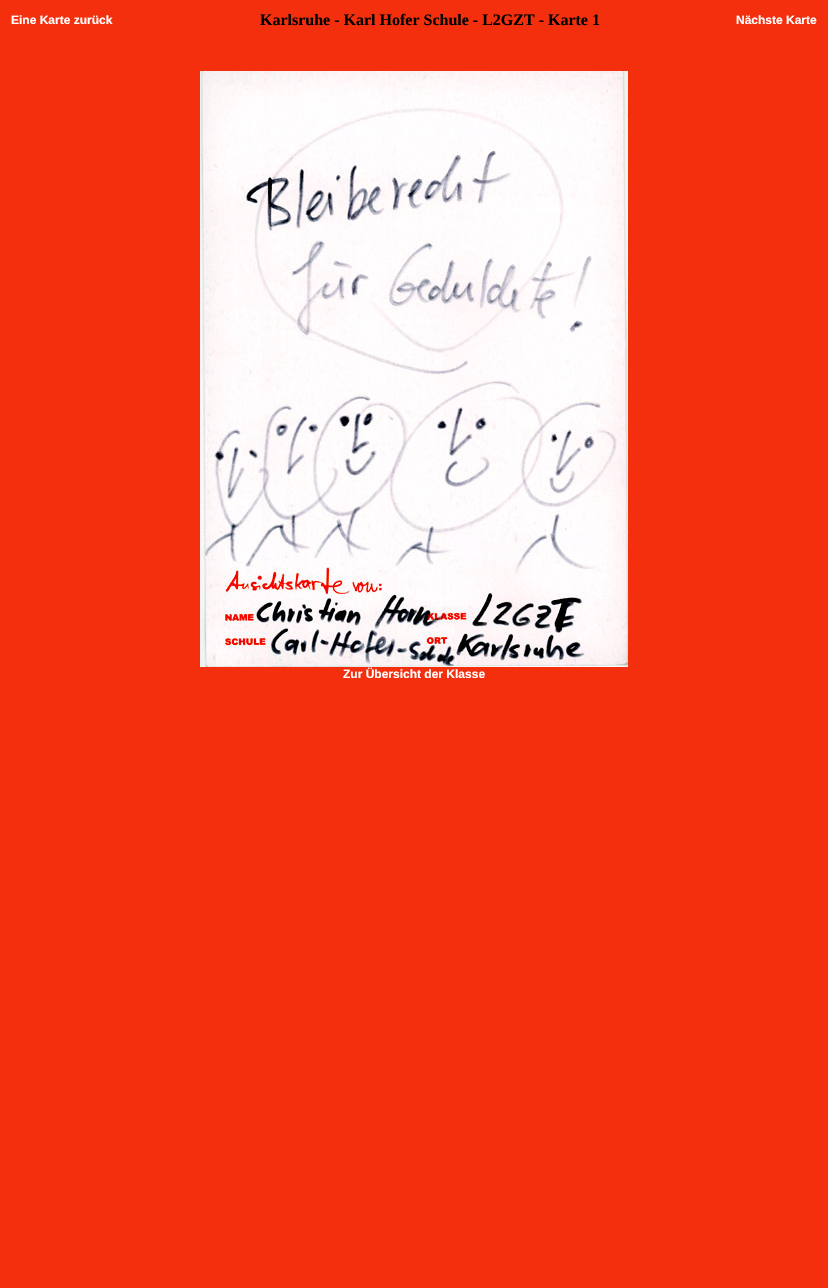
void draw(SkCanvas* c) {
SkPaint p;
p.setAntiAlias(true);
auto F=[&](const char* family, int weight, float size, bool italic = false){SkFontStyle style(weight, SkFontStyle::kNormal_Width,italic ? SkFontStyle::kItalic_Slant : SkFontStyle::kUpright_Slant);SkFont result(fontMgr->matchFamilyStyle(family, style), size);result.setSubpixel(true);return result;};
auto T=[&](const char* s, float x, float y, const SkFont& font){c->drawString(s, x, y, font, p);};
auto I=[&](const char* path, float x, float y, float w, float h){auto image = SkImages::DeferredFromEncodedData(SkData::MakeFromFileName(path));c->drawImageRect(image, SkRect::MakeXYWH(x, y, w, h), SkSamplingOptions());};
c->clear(0xfff42f0e);
auto f1 = F("Liberation Sans",700,12);
p.setColor(0xffffffff);
T("Eine Karte zurück",11,24,f1);
auto f2 = F("Liberation Serif",700,16);
p.setColor(0xff000000);
T("Karlsruhe - Karl Hofer Schule - L2GZT - Karte 1",260,25,f2);
p.setColor(0xffffffff);
T("Nächste Karte",736,24,f1);
I("1.png",200,71,428,596);
T("Zur Übersicht der Klasse",343,678,f1);
}
